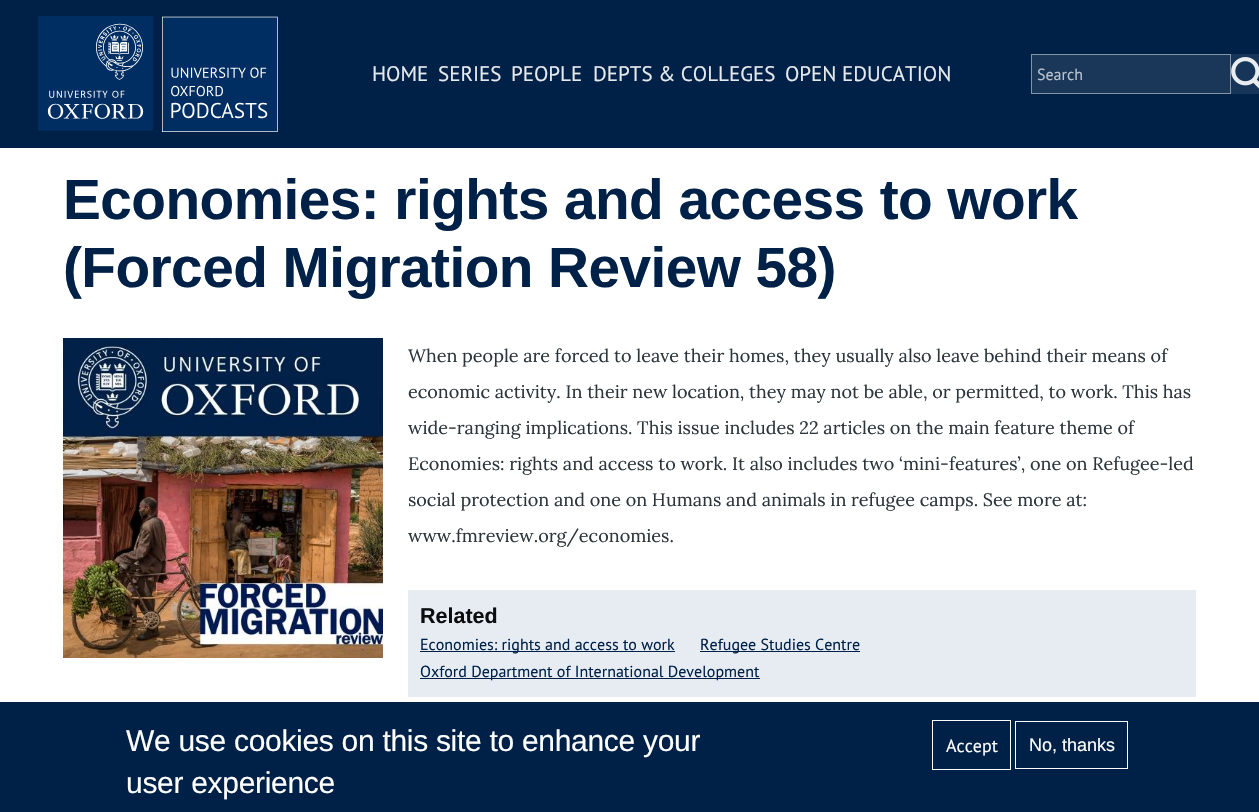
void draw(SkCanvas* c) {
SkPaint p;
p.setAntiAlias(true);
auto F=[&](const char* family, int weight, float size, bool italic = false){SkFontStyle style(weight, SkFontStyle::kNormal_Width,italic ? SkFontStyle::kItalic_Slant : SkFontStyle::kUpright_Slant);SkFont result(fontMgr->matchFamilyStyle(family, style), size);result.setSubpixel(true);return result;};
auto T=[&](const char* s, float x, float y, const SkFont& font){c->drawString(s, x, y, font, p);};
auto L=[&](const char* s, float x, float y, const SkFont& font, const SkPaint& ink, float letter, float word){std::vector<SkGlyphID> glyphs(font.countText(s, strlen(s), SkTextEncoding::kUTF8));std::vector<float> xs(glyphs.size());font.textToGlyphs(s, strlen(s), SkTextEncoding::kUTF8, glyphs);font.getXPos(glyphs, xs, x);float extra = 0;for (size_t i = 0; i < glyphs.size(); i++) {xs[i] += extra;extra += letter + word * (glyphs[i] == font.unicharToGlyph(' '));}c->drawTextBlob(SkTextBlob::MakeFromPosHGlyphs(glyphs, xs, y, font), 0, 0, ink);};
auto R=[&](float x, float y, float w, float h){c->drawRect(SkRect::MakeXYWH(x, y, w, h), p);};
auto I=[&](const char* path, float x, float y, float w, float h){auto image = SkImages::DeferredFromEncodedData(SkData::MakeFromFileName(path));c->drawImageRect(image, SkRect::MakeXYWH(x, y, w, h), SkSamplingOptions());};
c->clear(0xffffffff);
p.setColor(0xff002147);
R(0,0,1259,148);
I("1.png",38,16,240,116);
auto f1 = F("PT Sans",400,21);
p.setColor(0xffe6e9ed);
T("HOME",372,81,f1);
T("SERIES",438,81,f1);
T("PEOPLE",511,81,f1);
T("DEPTS & COLLEGES",593,81,f1);
T("OPEN EDUCATION",785,81,f1);
p.setColor(0xff1a3759);
c->drawRect(SkRect::MakeXYWH(1031.5,54.5,199,39),p);
p.setStroke(true);
p.setStrokeWidth(1);
p.setColor(0xff8196a2);
c->drawRect(SkRect::MakeXYWH(1031.5,54.5,199,39),p);
auto f2 = F("PT Sans",400,16);
p.setStroke(false);
p.setColor(0xffbac3cd);
T("Search",1037,80,f2);
p.setColor(0xff173558);
R(1231,54,28,40);
I("2.png",1231,57,28,32);
auto f3 = F("Liberation Sans",700,56.75);
p.setColor(0xff002147);
L("Economies: rights and access to work",63,219,f3,p,-.55,0);
L("(Forced Migration Review 58)",63,287,f3,p,-.55,0);
I("3.png",63,338,320,320);
auto f4 = F("Lora",400,18);
p.setColor(0xff2b353b);
T("When people are forced to leave their homes, they usually also leave behind their means of",408,362,f4);
T("economic activity. In their new location, they may not be able, or permitted, to work. This has",408,398,f4);
T("wide-ranging implications. This issue includes 22 articles on the main feature theme of",408,434,f4);
T("Economies: rights and access to work. It also includes two ‘mini-features’, one on Refugee-led",408,470,f4);
T("social protection and one on Humans and animals in refugee camps. See more at:",408,506,f4);
T("www.fmreview.org/economies.",408,542,f4);
p.setColor(0xffe7ecf3);
R(408,590,788,107);
auto f5 = F("Liberation Sans",700,21.5);
p.setColor(0xff0b0d0f);
T("Related",420,623,f5);
p.setColor(0xff002147);
R(420,651,255,1);
T("Economies: rights and access to work",420,650,f2);
R(700,651,160,1);
T("Refugee Studies Centre",700,650,f2);
R(420,678,340,1);
T("Oxford Department of International Development",420,677,f2);
R(0,702,1259,110);
auto f6 = F("Liberation Sans",400,30);
p.setColor(0xffffffff);
L("We use cookies on this site to enhance your",126,751,f6,p,-.3,0);
L("user experience",126,793,f6,p,-.3,0);
p.setStroke(true);
c->drawRect(SkRect::MakeXYWH(932.5,720.5,78,49),p);
auto f7 = F("PT Sans",400,18);
p.setStroke(false);
T("Accept",946,752,f7);
p.setStroke(true);
c->drawRect(SkRect::MakeXYWH(1015.5,721.5,112,47),p);
auto f8 = F("Liberation Sans",400,18);
p.setStroke(false);
T("No, thanks",1029,751,f8);
}
